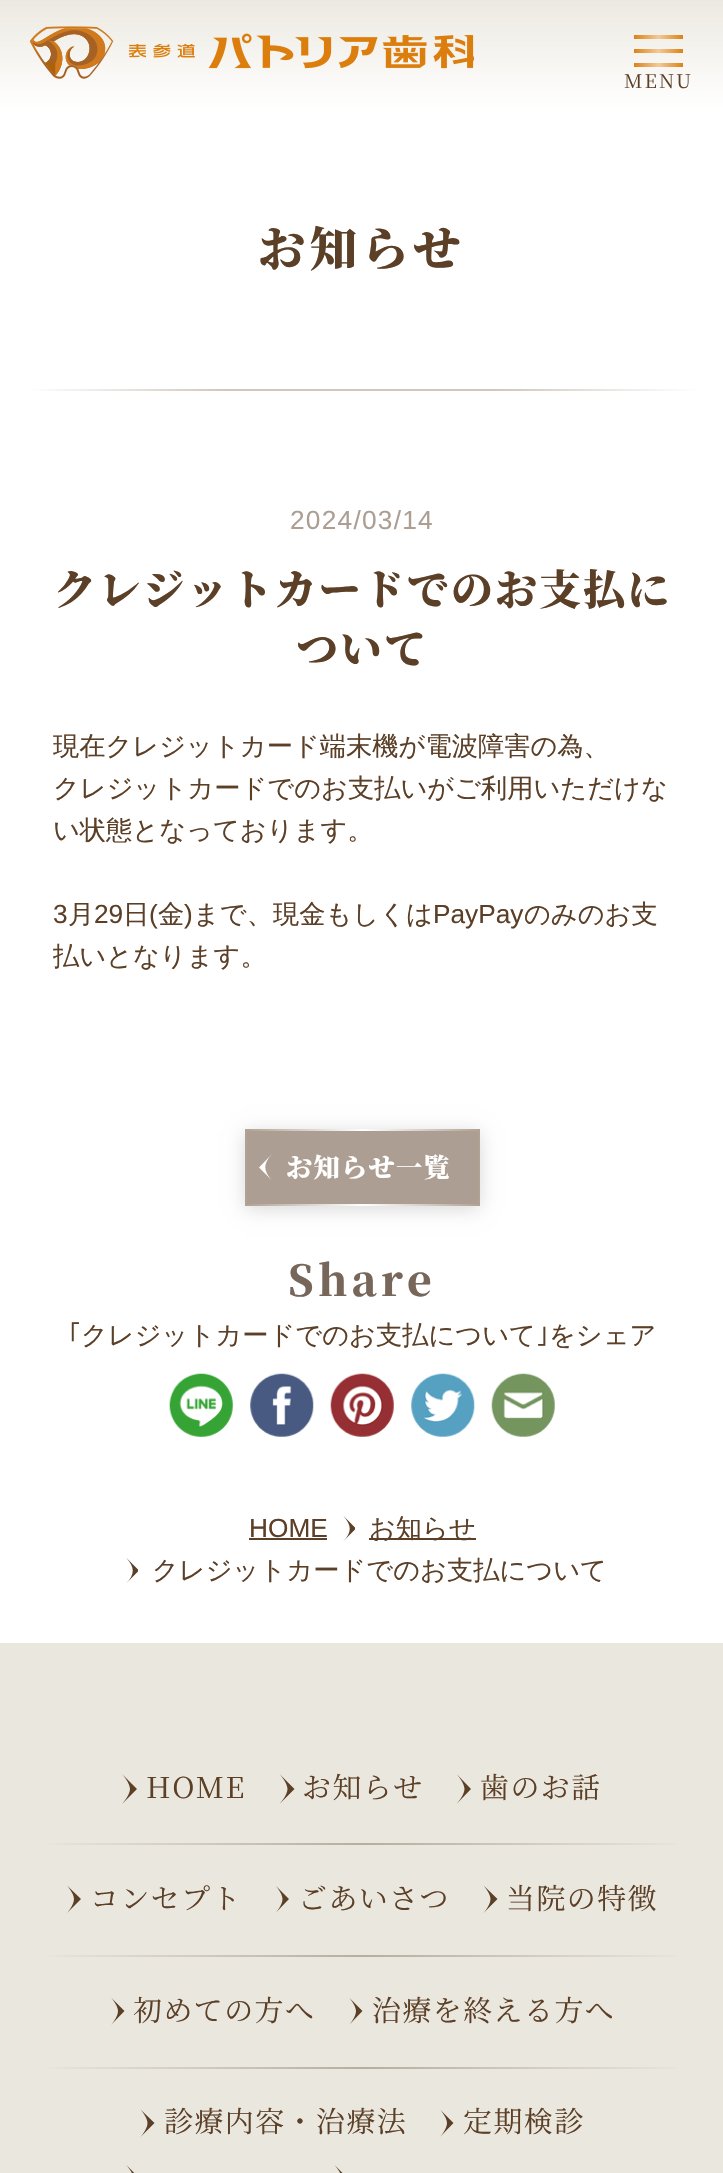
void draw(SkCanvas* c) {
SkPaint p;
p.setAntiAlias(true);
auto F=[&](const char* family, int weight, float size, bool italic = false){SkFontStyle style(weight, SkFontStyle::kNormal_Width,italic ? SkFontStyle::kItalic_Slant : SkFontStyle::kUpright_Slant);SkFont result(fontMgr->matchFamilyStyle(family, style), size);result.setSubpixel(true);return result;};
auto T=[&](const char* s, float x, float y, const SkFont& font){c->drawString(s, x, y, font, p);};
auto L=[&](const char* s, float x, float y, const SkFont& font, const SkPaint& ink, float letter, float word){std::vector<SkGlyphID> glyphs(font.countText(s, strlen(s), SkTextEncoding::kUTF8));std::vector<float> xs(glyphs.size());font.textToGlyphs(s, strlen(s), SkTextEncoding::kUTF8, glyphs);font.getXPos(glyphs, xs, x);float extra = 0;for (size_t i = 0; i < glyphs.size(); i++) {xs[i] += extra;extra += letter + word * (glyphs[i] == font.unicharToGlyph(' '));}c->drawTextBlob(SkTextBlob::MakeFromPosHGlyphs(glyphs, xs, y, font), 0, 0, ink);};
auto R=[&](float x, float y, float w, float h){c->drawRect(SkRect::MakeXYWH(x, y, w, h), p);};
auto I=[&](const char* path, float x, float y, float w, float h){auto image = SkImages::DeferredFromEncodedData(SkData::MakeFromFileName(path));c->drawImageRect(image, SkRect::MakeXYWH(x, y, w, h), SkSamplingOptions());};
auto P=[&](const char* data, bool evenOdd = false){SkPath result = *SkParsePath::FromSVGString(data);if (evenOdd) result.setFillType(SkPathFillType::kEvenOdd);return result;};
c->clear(0xffeae7de);
{
const SkColor colors[] = {0xffece9e1,0xffffffff};
const float stops[] = {0,1};
const SkPoint ends[] = {{362,0}, {362,109}};
p.setShader(SkGradientShader::MakeLinear(ends, colors, stops, 2, SkTileMode::kClamp));
p.setAlpha(255);
}
R(0,0,723,109);
I("1.png",30,26,444,53);
{
const SkColor colors[] = {0xffdd8215,0xfff2ca99,0xffdd8215};
const float stops[] = {0,.5,1};
const SkPoint ends[] = {{634,37}, {683,37}};
p.setShader(SkGradientShader::MakeLinear(ends, colors, stops, 3, SkTileMode::kClamp));
p.setAlpha(255);
}
R(634,35,49,4);
{
const SkColor colors[] = {0xffdd8215,0xfff2ca99,0xffdd8215};
const float stops[] = {0,.5,1};
const SkPoint ends[] = {{634,51}, {683,51}};
p.setShader(SkGradientShader::MakeLinear(ends, colors, stops, 3, SkTileMode::kClamp));
p.setAlpha(255);
}
R(634,49,49,4);
{
const SkColor colors[] = {0xffdd8215,0xfff2ca99,0xffdd8215};
const float stops[] = {0,.5,1};
const SkPoint ends[] = {{634,65}, {683,65}};
p.setShader(SkGradientShader::MakeLinear(ends, colors, stops, 3, SkTileMode::kClamp));
p.setAlpha(255);
}
R(634,63,49,4);
auto f1 = F("Noto Serif JP",400,19);
p.setShader(nullptr);
p.setColor(0xff5c3f27);
L("MENU",624,88,f1,p,2,0);
p.setColor(0xffffffff);
R(0,109,723,1534);
auto f2 = F("Noto Serif JP",900,47.25);
p.setColor(0xff5c3f27);
L("お知らせ",258,266,f2,p,4.5,0);
{
const SkColor colors[] = {0xffffffff,0xffd0c7be,0xffd0c7be,0xffffffff};
const float stops[] = {0,.3,.7,1};
const SkPoint ends[] = {{26,389}, {698,389}};
p.setShader(SkGradientShader::MakeLinear(ends, colors, stops, 4, SkTileMode::kClamp));
p.setAlpha(255);
}
R(26,389,672,2);
auto f3 = F("Liberation Sans",400,26.25);
p.setShader(nullptr);
p.setColor(0xffac9e92);
L("2024/03/14",290,529,f3,p,1.25,0);
auto f4 = F("Noto Serif JP",900,42);
p.setColor(0xff5c3f27);
L("クレジットカードでのお支払に",54,605,f4,p,2.1,0);
L("ついて",296,664,f4,p,2.1,0);
auto f5 = F("WenQuanYi Zen Hei",500,26.25);
T("現在クレジットカード端末機が電波障害の為、",53,755,f5);
T("クレジットカードでのお支払いがご利用いただけな",53,797,f5);
T("い状態となっております。",53,839,f5);
T("3",53,923,f3);
T("月",68,923,f5);
T("29",94,923,f3);
T("日",123,923,f5);
T("(",149,923,f3);
T("金",158,923,f5);
T(")",184,923,f3);
T("まで、現金もしくは",193,923,f5);
T("PayPay",433,923,f3);
T("のみのお支",524,923,f5);
T("払いとなります。",53,965,f5);
p.setColor(0x26000000);
p.setMaskFilter(SkMaskFilter::MakeBlur(kNormal_SkBlurStyle, 9));
c->drawRect(SkRect::MakeXYWH(245,1132,235,77),p);
p.setMaskFilter(nullptr);
{
const SkColor colors[] = {0xffb0a292,0xffffffff,0xffb0a292};
const float stops[] = {0,.5,1};
const SkPoint ends[] = {{245,1167}, {480,1167}};
p.setShader(SkGradientShader::MakeLinear(ends, colors, stops, 3, SkTileMode::kClamp));
p.setAlpha(255);
}
R(245,1129,235,77);
p.setShader(nullptr);
p.setColor(0xffac9e92);
R(247,1131,231,73);
p.setColor(0xffffffff);
c->drawPath(P("M272 1154c-9 10-9 16.5 0 26.5l-13-13z"),p);
auto f6 = F("Noto Serif JP",900,26.25);
L("お知らせ一覧",286,1177,f6,p,1.25,0);
p.setColor(0xff77675a);
L("Share",288,1296,f4,p,4.25,0);
auto f7 = F("IPAPGothic",400,26.25);
p.setColor(0xff5c3f27);
T("｢",68,1344,f7);
T("クレジットカードでのお支払について",81,1344,f5);
T("｣",536,1344,f7);
T("をシェア",549,1344,f5);
I("2.png",169,1373,64,64);
I("3.png",250,1373,64,64);
I("4.png",330,1373,64,64);
I("5.png",411,1373,64,64);
I("6.png",491,1373,64,64);
T("HOME",249,1537,f3);
R(249,1538,78,2);
c->save();
c->clipRect(SkRect::MakeXYWH(343,1516,12,26));
c->drawPath(P("M343 1541.5c9-9.5 9-16 0-26l13 13z"),p);
c->restore();
R(369,1538,107,2);
T("お知らせ",369,1537,f5);
c->save();
c->clipRect(SkRect::MakeXYWH(126,1558,12,26));
c->drawPath(P("M126 1583.5c9-9.5 9-16 0-26l13 13z"),p);
c->restore();
T("クレジットカードでのお支払について",152,1579,f5);
c->drawPath(P("M122.5 1803.5c0 0 7.5-8.5 7.5-14.5c0-6-7.5-14.5-7.5-14.5l14.5 14.5z"),p);
auto f8 = F("Noto Serif JP",400,28.9);
L("HOME",146,1798,f8,p,1.5,0);
c->drawPath(P("M280 1803.5c0 0 7.5-8.5 7.5-14.5c0-6-7.5-14.5-7.5-14.5l14.5 14.5z"),p);
L("お知らせ",302,1798,f8,p,1.5,0);
c->drawPath(P("M457 1803.5c0 0 7.5-8.5 7.5-14.5c0-6-7.5-14.5-7.5-14.5l14 14.5z"),p);
L("歯のお話",480,1798,f8,p,1.5,0);
{
const SkColor colors[] = {0xffeae7de,0xffb7ada1,0xffeae7de};
const float stops[] = {0,.5,1};
const SkPoint ends[] = {{35,1844}, {691,1844}};
p.setShader(SkGradientShader::MakeLinear(ends, colors, stops, 3, SkTileMode::kClamp));
p.setAlpha(255);
}
R(48,1843,630,2);
p.setShader(nullptr);
p.setColor(0xff5c3f27);
c->drawPath(P("M66.5 1913.5c0 0 7.5-8 7.5-14.5c0-6-7.5-14-7.5-14l14.5 14z"),p);
L("コンセプト",90,1909,f8,p,1.5,0);
c->drawPath(P("M275 1913.5c0 0 7.5-8 7.5-14.5c0-6-7.5-14-7.5-14l14 14z"),p);
L("ごあいさつ",298,1909,f8,p,1.5,0);
c->drawPath(P("M483 1913.5c0 0 7.5-8 7.5-14.5c0-6-7.5-14-7.5-14l14.5 14z"),p);
L("当院の特徴",506,1909,f8,p,1.5,0);
{
const SkColor colors[] = {0xffeae7de,0xffb7ada1,0xffeae7de};
const float stops[] = {0,.5,1};
const SkPoint ends[] = {{35,1956}, {691,1956}};
p.setShader(SkGradientShader::MakeLinear(ends, colors, stops, 3, SkTileMode::kClamp));
p.setAlpha(255);
}
R(48,1955,630,2);
p.setShader(nullptr);
p.setColor(0xff5c3f27);
c->drawPath(P("M110.5 2025.5c0 0 7.5-8 7.5-14.5c0-6-7.5-14-7.5-14l14 14z"),p);
L("初めての方へ",133,2021,f8,p,1.5,0);
c->drawPath(P("M348.5 2025.5c0 0 7.5-8 7.5-14.5c0-6-7.5-14-7.5-14l14 14z"),p);
L("治療を終える方へ",372,2021,f8,p,1.5,0);
{
const SkColor colors[] = {0xffeae7de,0xffb7ada1,0xffeae7de};
const float stops[] = {0,.5,1};
const SkPoint ends[] = {{35,2068}, {691,2068}};
p.setShader(SkGradientShader::MakeLinear(ends, colors, stops, 3, SkTileMode::kClamp));
p.setAlpha(255);
}
R(48,2067,630,2);
p.setShader(nullptr);
p.setColor(0xff5c3f27);
c->drawPath(P("M140 2137.5c0 0 7.5-8 7.5-14.5c0-6-7.5-14-7.5-14l14.5 14z"),p);
L("診療内容・治療法",164,2132,f8,p,1.5,0);
c->drawPath(P("M439.5 2137.5c0 0 7.5-8 7.5-14.5c0-6-7.5-14-7.5-14l14 14z"),p);
L("定期検診",463,2132,f8,p,1.5,0);
I("7.png",126,2165,9,8);
I("8.png",334,2165,9,8);
}
